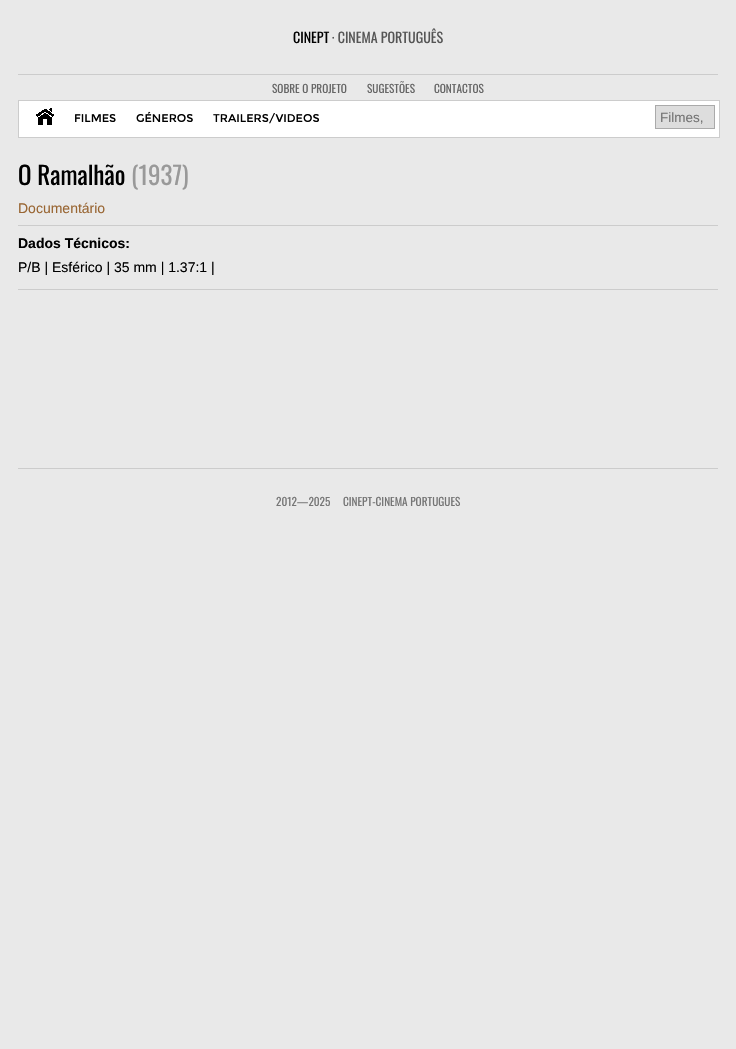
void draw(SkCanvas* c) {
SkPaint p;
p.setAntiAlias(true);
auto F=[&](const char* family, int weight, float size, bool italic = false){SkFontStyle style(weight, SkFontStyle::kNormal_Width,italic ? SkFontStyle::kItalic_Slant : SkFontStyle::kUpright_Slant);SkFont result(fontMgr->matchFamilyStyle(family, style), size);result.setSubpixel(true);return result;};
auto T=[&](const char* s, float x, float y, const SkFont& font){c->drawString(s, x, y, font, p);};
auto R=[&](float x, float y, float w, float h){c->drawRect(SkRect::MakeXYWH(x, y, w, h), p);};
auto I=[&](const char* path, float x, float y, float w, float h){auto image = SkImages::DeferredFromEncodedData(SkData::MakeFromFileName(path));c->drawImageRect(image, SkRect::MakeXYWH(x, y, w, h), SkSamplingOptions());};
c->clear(0xffe9e9e9);
auto f1 = F("Oswald",400,14);
p.setColor(0xff000000);
T("CINEPT",293,43,f1);
p.setColor(0xff555555);
T("· CINEMA PORTUGUÊS",332,43,f1);
p.setColor(0xffcccccc);
R(18,74,700,1);
auto f2 = F("Oswald",400,11.25);
p.setColor(0xff666666);
T("SOBRE O PROJETO",272,93,f2);
T("SUGESTÕES",367,93,f2);
T("CONTACTOS",434,93,f2);
p.setColor(0xffffffff);
c->drawRect(SkRect::MakeXYWH(18.5,100.5,701,37),p);
p.setStroke(true);
p.setStrokeWidth(1);
p.setColor(0xffcccccc);
c->drawRect(SkRect::MakeXYWH(18.5,100.5,701,37),p);
I("1.png",36,108,18,17);
auto f3 = F("Montserrat",400,11.25);
p.setStroke(false);
p.setColor(0xff000000);
T("FILMES",74,122,f3);
T("GÉNEROS",136,122,f3);
T("TRAILERS/VIDEOS",213,122,f3);
p.setColor(0xffdddddd);
c->drawRect(SkRect::MakeXYWH(655.5,105.5,59,23),p);
p.setStroke(true);
p.setColor(0xffaaaaaa);
c->drawRect(SkRect::MakeXYWH(655.5,105.5,59,23),p);
auto f4 = F("Liberation Sans",400,13.5);
p.setStroke(false);
p.setColor(0xff757575);
T("Filmes,",660,122,f4);
auto f5 = F("Oswald",400,25);
p.setColor(0xff000000);
T("O Ramalhão",18,185,f5);
p.setColor(0xff999999);
T("(1937)",131,185,f5);
auto f6 = F("Liberation Sans",400,14);
p.setColor(0xff996633);
T("Documentário",18,213,f6);
p.setColor(0xffcccccc);
R(18,225,700,1);
auto f7 = F("Liberation Sans",700,14);
p.setColor(0xff000000);
T("Dados Técnicos:",18,248,f7);
T("P/B | Esférico | 35 mm | 1.37:1 |",18,272,f6);
p.setColor(0xffcccccc);
R(18,289,700,1);
R(18,468,700,1);
p.setColor(0xff757575);
T("2012—2025",276,506,f2);
T("CINEPT-CINEMA PORTUGUES",343,506,f2);
}
